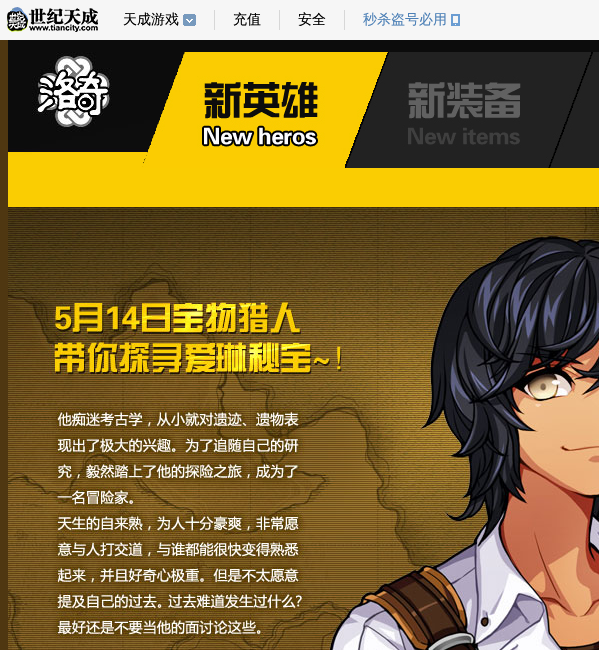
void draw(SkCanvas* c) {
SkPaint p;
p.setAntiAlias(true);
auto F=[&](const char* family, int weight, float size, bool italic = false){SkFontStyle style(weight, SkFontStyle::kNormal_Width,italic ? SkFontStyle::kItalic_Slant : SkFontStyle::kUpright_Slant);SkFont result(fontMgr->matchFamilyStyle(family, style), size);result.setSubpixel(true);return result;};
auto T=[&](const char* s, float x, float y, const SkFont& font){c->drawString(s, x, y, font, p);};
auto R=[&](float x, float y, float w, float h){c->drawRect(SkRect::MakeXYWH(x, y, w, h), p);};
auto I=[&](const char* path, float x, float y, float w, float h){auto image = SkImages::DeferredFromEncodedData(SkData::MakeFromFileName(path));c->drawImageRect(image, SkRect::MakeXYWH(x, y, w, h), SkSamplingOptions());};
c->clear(0xff4f3711);
p.setColor(0xfff6f6f6);
R(0,0,599,40);
I("1.png",7,7,91,25);
p.setColor(0xffd7d7d7);
R(214,10,1,20);
auto f1 = F("WenQuanYi Zen Hei",500,14);
p.setColor(0xff000000);
T("天成游戏",123,24,f1);
I("2.png",183,14,13,12);
p.setColor(0xffd7d7d7);
R(279,10,1,20);
p.setColor(0xff000000);
T("充值",233,24,f1);
p.setColor(0xffd7d7d7);
R(344,10,1,20);
p.setColor(0xff000000);
T("安全",298,24,f1);
p.setColor(0xff4c80b6);
T("秒杀盗号必用",363,24,f1);
I("3.png",451,14,9,12);
I("4.png",8,40,591,167);
I("5.png",142,52,246,116);
I("6.png",345,52,247,116);
I("7.png",550,52,49,116);
I("8.png",8,207,591,441);
I("9.png",8,648,591,2);
}
